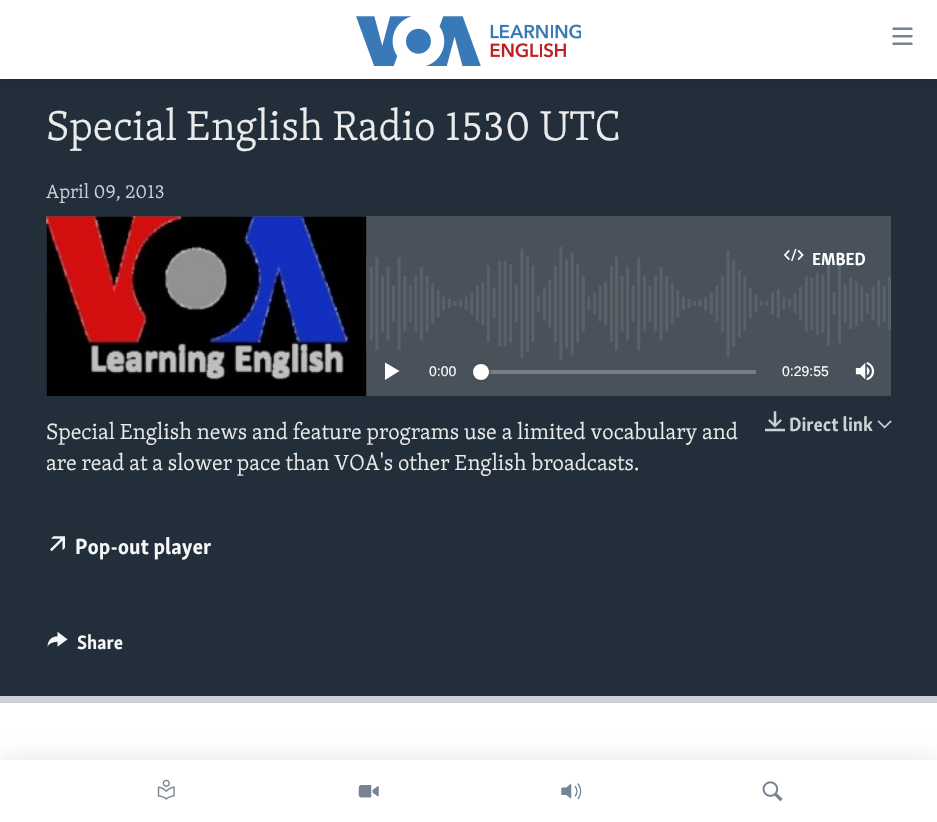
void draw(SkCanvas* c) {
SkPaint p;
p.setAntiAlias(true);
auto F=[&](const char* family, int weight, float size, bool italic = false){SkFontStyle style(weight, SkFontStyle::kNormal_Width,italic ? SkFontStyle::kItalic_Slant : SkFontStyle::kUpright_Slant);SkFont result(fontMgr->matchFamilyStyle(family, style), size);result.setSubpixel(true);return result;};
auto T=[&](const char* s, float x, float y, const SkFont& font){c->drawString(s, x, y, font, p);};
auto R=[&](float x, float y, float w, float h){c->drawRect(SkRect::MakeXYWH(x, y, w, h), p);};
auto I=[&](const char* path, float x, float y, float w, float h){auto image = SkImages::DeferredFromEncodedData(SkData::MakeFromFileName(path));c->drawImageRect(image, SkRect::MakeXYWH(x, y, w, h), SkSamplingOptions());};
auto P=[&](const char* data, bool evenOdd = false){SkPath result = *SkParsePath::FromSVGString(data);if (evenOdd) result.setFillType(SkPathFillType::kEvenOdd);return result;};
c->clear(0xffffffff);
p.setColor(0xff222f3a);
R(0,79,937,617);
p.setColor(0x1a000000);
p.setMaskFilter(SkMaskFilter::MakeBlur(kNormal_SkBlurStyle, 12.5));
c->drawRect(SkRect::MakeXYWH(0,0,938,79),p);
p.setMaskFilter(nullptr);
p.setColor(0xffffffff);
R(0,0,937,79);
I("1.png",356,16,225,50);
I("2.png",892,27,21,18);
p.setColor(0x1a000000);
p.setMaskFilter(SkMaskFilter::MakeBlur(kNormal_SkBlurStyle, 12.5));
c->drawRect(SkRect::MakeXYWH(0,760,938,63),p);
p.setMaskFilter(nullptr);
p.setColor(0xffffffff);
R(0,760,937,62);
I("3.png",157,779,18,21);
I("4.png",358,785,21,13);
I("5.png",561,783,21,17);
I("6.png",762,781,21,21);
p.setColor(0xffcbd1d6);
R(0,696,937,7);
auto f1 = F("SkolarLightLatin",300,42.75);
p.setColor(0xffebebeb);
T("Special English Radio 1530 UTC",46,140,f1);
auto f2 = F("SkolarLightLatin",300,19.75);
p.setColor(0xffcbd1d6);
T("April 09, 2013",46,198,f2);
p.setColor(0xff49525a);
R(46,216,845,180);
I("7.png",46,247,845,114);
I("8.png",46,216,321,180);
I("9.png",783,248,21,14);
auto f3 = F("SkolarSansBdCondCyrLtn",700,18);
p.setColor(0xffffffff);
T("EMBED",812,265,f3);
c->drawPath(P("M385 380l14.5-9l-14.5-8.5z"),p);
auto f4 = F("Liberation Sans",400,14);
T("0:00",429,376,f4);
p.setColor(0xff777d83);
R(480,370,276,4);
p.setColor(0xff414144);
p.setMaskFilter(SkMaskFilter::MakeBlur(kNormal_SkBlurStyle, 2));
c->drawRoundRect(SkRect::MakeXYWH(473,364,16,16),8,8,p);
p.setMaskFilter(nullptr);
p.setColor(0xffffffff);
c->drawCircle(481,372,8,p);
T("0:29:55",782,376,f4);
I("10.png",855,362,20,19);
auto f5 = F("SkolarLightLatin",300,22.5);
p.setColor(0xffebebeb);
T("Special English news and feature programs use a limited vocabulary and",46,439,f5);
T("are read at a slower pace than VOA's other English broadcasts.",46,470,f5);
I("11.png",765,411,20,21);
auto f6 = F("SkolarSansBdCondCyrLtn",700,19.75);
p.setColor(0xffcbd1d6);
T("Direct link",789,431,f6);
I("12.png",877,420,15,9);
I("13.png",50,536,15,16);
auto f7 = F("SkolarSansBdCondCyrLtn",700,22.5);
p.setColor(0xfff6f7f8);
T("Pop-out player",75,554,f7);
I("14.png",47,631,21,16);
T("Share",77,649,f6);
}
